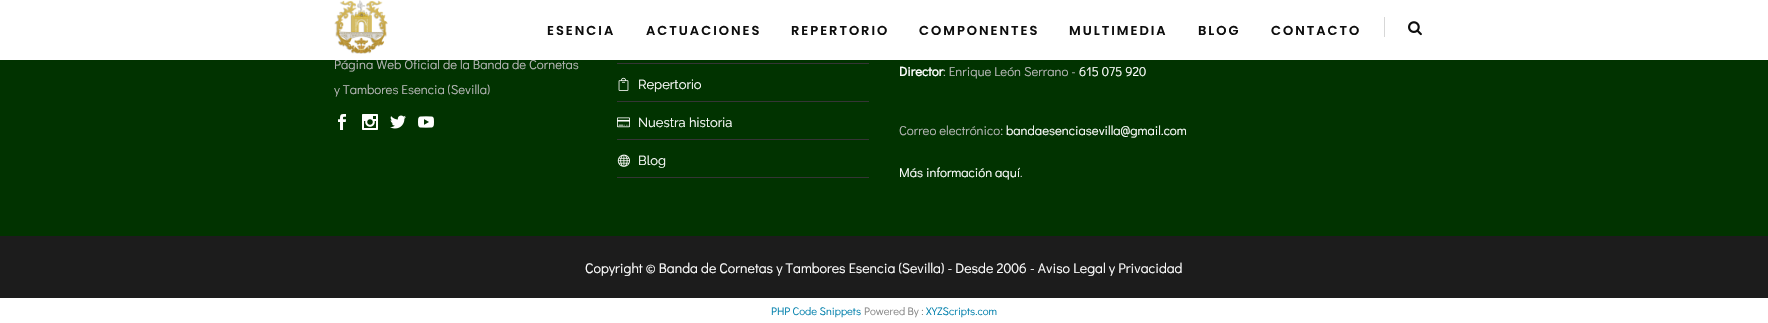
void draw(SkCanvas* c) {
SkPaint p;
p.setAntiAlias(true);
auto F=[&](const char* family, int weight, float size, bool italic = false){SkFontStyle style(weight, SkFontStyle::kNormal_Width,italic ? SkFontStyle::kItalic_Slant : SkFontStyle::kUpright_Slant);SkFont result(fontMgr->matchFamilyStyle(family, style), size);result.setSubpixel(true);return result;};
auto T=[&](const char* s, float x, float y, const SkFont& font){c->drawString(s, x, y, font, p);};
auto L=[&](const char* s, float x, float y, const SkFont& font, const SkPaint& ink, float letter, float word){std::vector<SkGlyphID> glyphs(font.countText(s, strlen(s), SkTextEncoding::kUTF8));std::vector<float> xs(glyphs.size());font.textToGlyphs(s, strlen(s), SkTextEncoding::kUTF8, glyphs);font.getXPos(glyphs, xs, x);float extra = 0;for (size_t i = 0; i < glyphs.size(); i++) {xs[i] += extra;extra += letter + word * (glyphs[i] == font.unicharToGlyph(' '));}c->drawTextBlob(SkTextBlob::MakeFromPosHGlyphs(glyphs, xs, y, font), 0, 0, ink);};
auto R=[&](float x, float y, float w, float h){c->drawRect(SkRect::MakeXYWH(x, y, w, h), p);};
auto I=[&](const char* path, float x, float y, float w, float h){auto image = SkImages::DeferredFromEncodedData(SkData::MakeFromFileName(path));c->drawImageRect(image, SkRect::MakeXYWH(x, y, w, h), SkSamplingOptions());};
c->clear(0xffffffff);
p.setColor(0xff013300);
R(0,60,1768,176);
auto f1 = F("Didact Gothic",400,13);
p.setColor(0xffb7b7b7);
T("Página Web Oficial de la Banda de Cornetas",334,69,f1);
p.setColor(0xffffffff);
R(394,59,125,1);
I("1.png",334,0,54,54);
auto f2 = F("Poppins",600,13);
p.setColor(0xff0e0e0e);
L("ESENCIA",547,35,f2,p,2,0);
L("ACTUACIONES",646,35,f2,p,2,0);
L("REPERTORIO",791,35,f2,p,2,0);
L("COMPONENTES",919,35,f2,p,2,0);
L("MULTIMEDIA",1069,35,f2,p,2,0);
L("BLOG",1198,35,f2,p,2,0);
L("CONTACTO",1271,35,f2,p,2,0);
p.setColor(0xffd7d7d7);
R(1384,17,1,20);
I("2.png",1408,21,14,15);
p.setColor(0xffb7b7b7);
T("y Tambores Esencia (Sevilla)",334,94,f1);
I("3.png",338,114,8,16);
I("4.png",362,114,16,16);
I("5.png",390,115,16,14);
I("6.png",418,116,16,12);
p.setColor(0xff353535);
R(617,63,252,1);
R(617,101,252,1);
I("7.png",618,77,11,14);
auto f3 = F("Raleway",400,13);
p.setColor(0xffffffff);
T("Repertorio",638,89,f3);
p.setColor(0xff353535);
R(617,139,252,1);
I("8.png",617,117,13,11);
p.setColor(0xffffffff);
T("Nuestra historia",638,127,f3);
p.setColor(0xff353535);
R(617,177,252,1);
I("9.png",617,154,13,13);
p.setColor(0xffffffff);
T("Blog",638,165,f3);
auto f4 = F("Didact Gothic",700,13);
T("Director",899,76,f4);
p.setColor(0xffb7b7b7);
T(": Enrique León Serrano -",943,76,f1);
p.setColor(0xffffffff);
T("615 075 920",1079,76,f1);
p.setColor(0xffb7b7b7);
T("Correo electrónico:",899,135,f1);
p.setColor(0xffffffff);
T("bandaesenciasevilla@gmail.com",1006,135,f1);
T("Más información aquí",899,177,f1);
p.setColor(0xffb7b7b7);
T(".",1020,177,f1);
p.setColor(0xff1c1c1c);
R(0,236,1768,62);
auto f5 = F("Didact Gothic",400,14);
p.setColor(0xffffffff);
T("Copyright © Banda de Cornetas y Tambores Esencia (Sevilla) - Desde 2006 - Aviso Legal y Privacidad",585,273,f5);
auto f6 = F("Didact Gothic",400,11);
p.setColor(0xff007fac);
T("PHP Code Snippets",771,315,f6);
p.setColor(0xff868686);
T("Powered By :",864,315,f6);
p.setColor(0xff007fac);
T("XYZScripts.com",926,315,f6);
}
